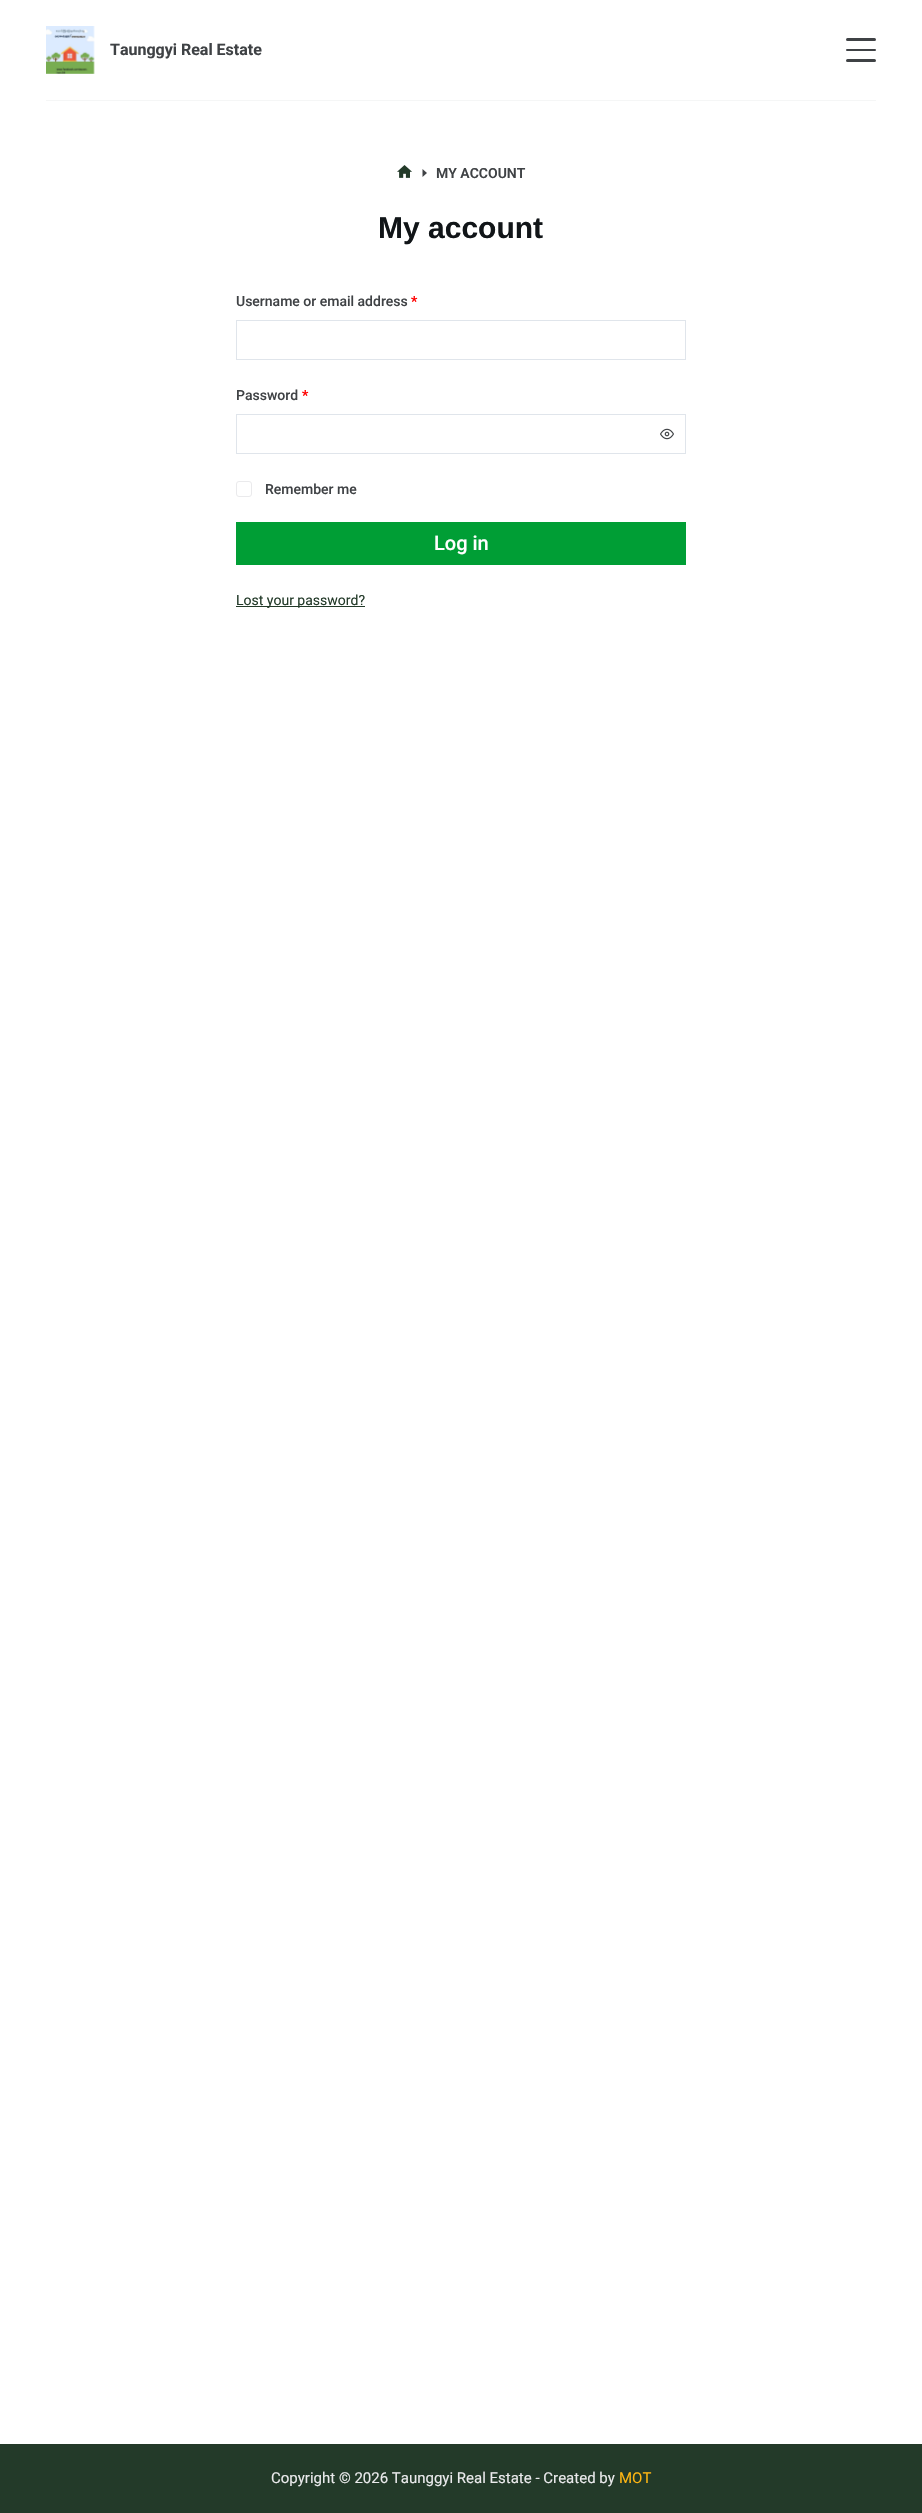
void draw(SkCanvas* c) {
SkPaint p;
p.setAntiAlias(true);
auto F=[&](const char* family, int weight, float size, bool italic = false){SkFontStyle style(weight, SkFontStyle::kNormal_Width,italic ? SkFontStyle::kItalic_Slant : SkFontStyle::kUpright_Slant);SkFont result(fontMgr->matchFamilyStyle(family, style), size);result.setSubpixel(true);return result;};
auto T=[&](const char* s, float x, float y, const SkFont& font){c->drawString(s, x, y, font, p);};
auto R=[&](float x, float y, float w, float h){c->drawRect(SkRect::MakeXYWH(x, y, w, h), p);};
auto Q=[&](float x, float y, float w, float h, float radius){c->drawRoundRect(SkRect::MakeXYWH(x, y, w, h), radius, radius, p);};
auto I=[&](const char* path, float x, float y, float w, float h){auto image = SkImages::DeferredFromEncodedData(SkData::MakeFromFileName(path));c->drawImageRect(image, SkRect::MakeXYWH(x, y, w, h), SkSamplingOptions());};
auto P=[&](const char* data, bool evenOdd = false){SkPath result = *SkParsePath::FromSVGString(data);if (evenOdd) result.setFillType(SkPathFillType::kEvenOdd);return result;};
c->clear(0xffffffff);
p.setColor(0xfff5f6f6);
R(46,100,830,1);
I("1.png",46,26,49,48);
auto f1 = F("Roboto",700,16);
p.setColor(0xff3f4245);
T("Taunggyi Real Estate",110,55,f1);
Q(846,38,30,3,1.5);
Q(846,49,30,2,1);
Q(846,59,30,3,1.5);
I("2.png",397,165,15,13);
c->drawPath(P("M422.5 169l4.5 4l-4.5 4z"),p);
auto f2 = F("Roboto",600,14);
T("MY ACCOUNT",436,178,f2);
auto f3 = F("Liberation Sans",700,30);
p.setColor(0xff111518);
T("My account",378,238,f3);
auto f4 = F("Roboto",500,14);
p.setColor(0xff3f4245);
T("Username or email address",236,306,f4);
auto f5 = F("Roboto",700,14);
p.setColor(0xffff0000);
T("*",411,306,f5);
p.setStroke(true);
p.setStrokeWidth(1);
p.setColor(0xffe0e5eb);
c->drawRect(SkRect::MakeXYWH(236.5,320.5,449,39),p);
p.setStroke(false);
p.setColor(0xff3f4245);
T("Password",236,400,f4);
p.setColor(0xffff0000);
T("*",302,400,f5);
p.setStroke(true);
p.setColor(0xffe0e5eb);
c->drawRect(SkRect::MakeXYWH(236.5,414.5,449,39),p);
I("3.png",660,428,14,12);
p.setColor(0xffeaeaec);
c->drawRoundRect(SkRect::MakeXYWH(236.5,481.5,15,15),2.5,2.5,p);
p.setStroke(false);
p.setColor(0xff3f4245);
T("Remember me",265,494,f4);
p.setColor(0xff009e35);
R(236,522,450,43);
auto f6 = F("Roboto",500,20);
p.setColor(0xffffffff);
T("Log in",434,550,f6);
p.setColor(0xff233a29);
R(236,606,129,1);
auto f7 = F("Roboto",400,14);
T("Lost your password?",236,605,f7);
R(0,2444,922,69);
auto f8 = F("Roboto",400,15);
p.setColor(0xffeaeaec);
T("Copyright © 2026 Taunggyi Real Estate - Created by",271,2483,f8);
p.setColor(0xffffb612);
T("MOT",619,2483,f8);
}
